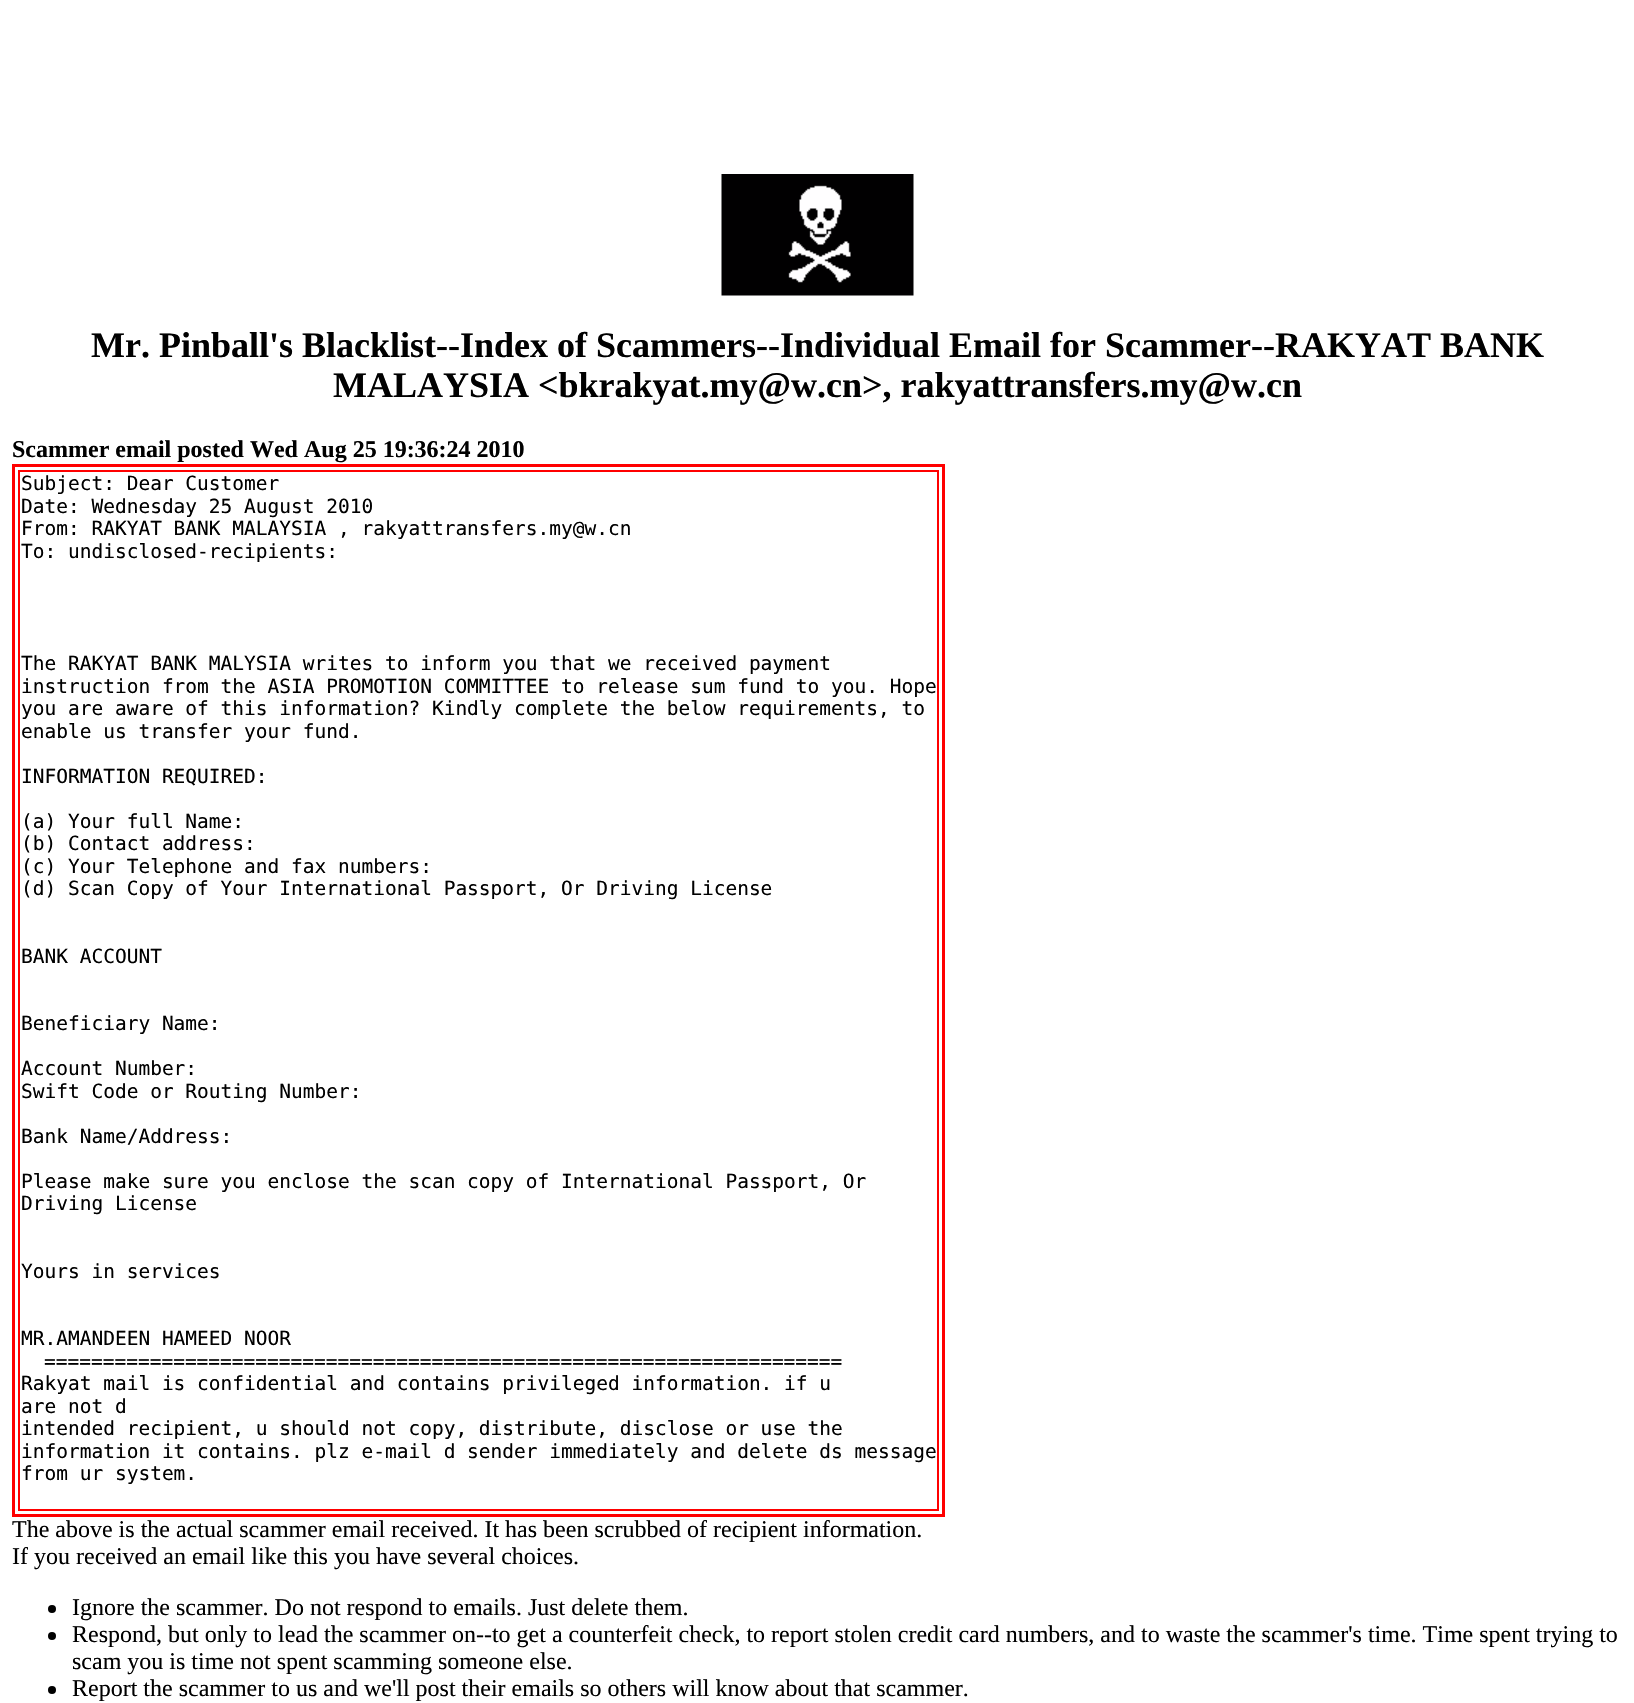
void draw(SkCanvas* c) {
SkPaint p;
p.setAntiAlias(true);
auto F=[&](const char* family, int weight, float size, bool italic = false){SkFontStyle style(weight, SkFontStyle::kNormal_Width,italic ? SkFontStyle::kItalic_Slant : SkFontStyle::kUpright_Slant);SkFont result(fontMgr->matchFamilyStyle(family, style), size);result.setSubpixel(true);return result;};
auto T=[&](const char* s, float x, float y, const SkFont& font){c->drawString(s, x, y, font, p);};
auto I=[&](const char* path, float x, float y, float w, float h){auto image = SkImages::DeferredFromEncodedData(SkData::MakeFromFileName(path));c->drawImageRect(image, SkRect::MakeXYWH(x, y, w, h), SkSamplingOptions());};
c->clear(0xffffffff);
I("1.png",721,174,193,122);
auto f1 = F("Liberation Serif",700,36);
p.setColor(0xff000000);
T("Mr. Pinball's Blacklist--Index of Scammers--Individual Email for Scammer--RAKYAT BANK",91,357,f1);
T("MALAYSIA <bkrakyat.my@w.cn>, rakyattransfers.my@w.cn",333,397,f1);
auto f2 = F("Liberation Serif",700,24);
T("Scammer email posted Wed Aug 25 19:36:24 2010",12,457,f2);
p.setStroke(true);
p.setStrokeWidth(3);
p.setColor(0xffff0000);
c->drawRect(SkRect::MakeXYWH(13.5,465.5,930,1050),p);
p.setStrokeWidth(2);
c->drawRect(SkRect::MakeXYWH(19,471,919,1039),p);
auto f3 = F("DejaVu Sans Mono",400,19.5);
p.setStroke(false);
p.setColor(0xff000000);
T("Subject: Dear Customer",21,490,f3);
T("Date: Wednesday 25 August 2010",21,513,f3);
T("From: RAKYAT BANK MALAYSIA , rakyattransfers.my@w.cn",21,535,f3);
T("To: undisclosed-recipients:",21,558,f3);
T("The RAKYAT BANK MALYSIA writes to inform you that we received payment",21,670,f3);
T("instruction from the ASIA PROMOTION COMMITTEE to release sum fund to you. Hope",21,693,f3);
T("you are aware of this information? Kindly complete the below requirements, to",21,715,f3);
T("enable us transfer your fund.",21,738,f3);
T("INFORMATION REQUIRED:",21,783,f3);
T("(a) Your full Name:",21,828,f3);
T("(b) Contact address:",21,850,f3);
T("(c) Your Telephone and fax numbers:",21,873,f3);
T("(d) Scan Copy of Your International Passport, Or Driving License",21,895,f3);
T("BANK ACCOUNT",21,963,f3);
T("Beneficiary Name:",21,1030,f3);
T("Account Number:",21,1075,f3);
T("Swift Code or Routing Number:",21,1098,f3);
T("Bank Name/Address:",21,1143,f3);
T("Please make sure you enclose the scan copy of International Passport, Or",21,1188,f3);
T("Driving License",21,1210,f3);
T("Yours in services",21,1278,f3);
T("MR.AMANDEEN HAMEED NOOR",21,1345,f3);
T("====================================================================",44,1368,f3);
T("Rakyat mail is confidential and contains privileged information. if u",21,1390,f3);
T("are not d",21,1413,f3);
T("intended recipient, u should not copy, distribute, disclose or use the",21,1435,f3);
T("information it contains. plz e-mail d sender immediately and delete ds message",21,1458,f3);
T("from ur system.",21,1480,f3);
auto f4 = F("Liberation Serif",400,24);
T("The above is the actual scammer email received. It has been scrubbed of recipient information.",12,1537,f4);
T("If you received an email like this you have several choices.",12,1564,f4);
c->drawCircle(52,1609,4,p);
T("Ignore the scammer. Do not respond to emails. Just delete them.",72,1615,f4);
c->drawCircle(52,1636,4,p);
T("Respond, but only to lead the scammer on--to get a counterfeit check, to report stolen credit card numbers, and to waste the scammer's time. Time spent trying to",72,1642,f4);
T("scam you is time not spent scamming someone else.",72,1669,f4);
c->drawCircle(52,1690,4,p);
T("Report the scammer to us and we'll post their emails so others will know about that scammer.",72,1696,f4);
}
